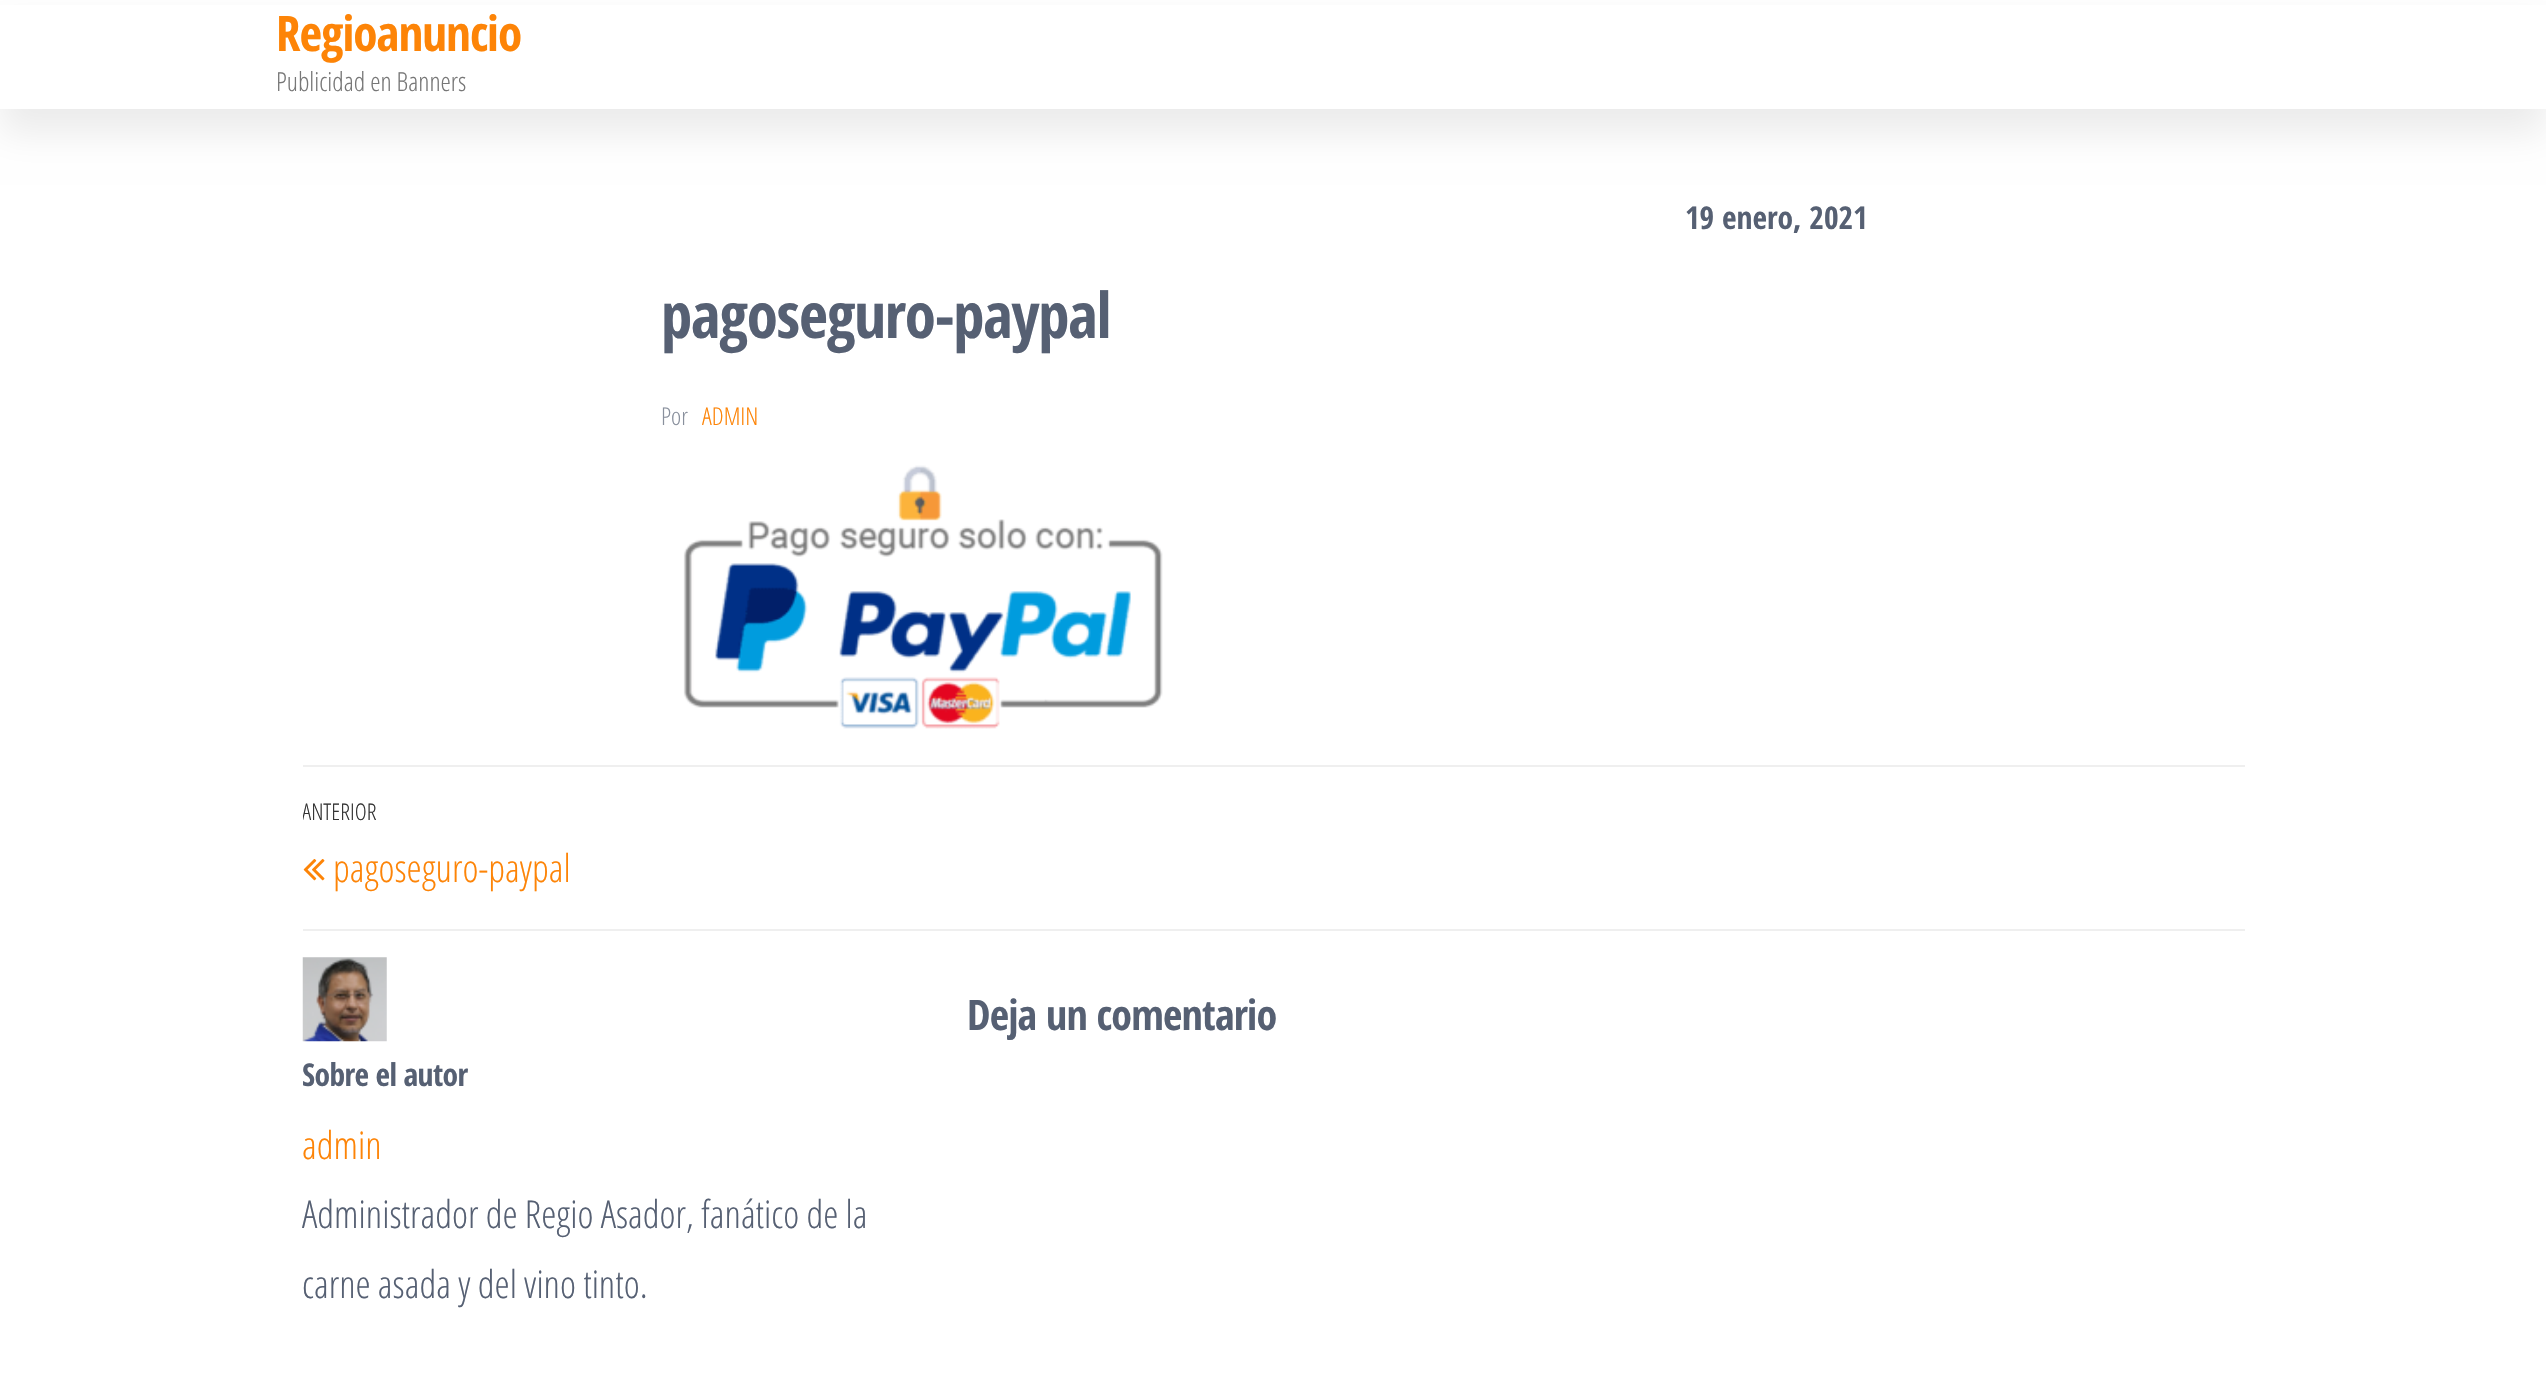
void draw(SkCanvas* c) {
SkPaint p;
p.setAntiAlias(true);
auto F=[&](const char* family, int weight, float size, bool italic = false){SkFontStyle style(weight, SkFontStyle::kNormal_Width,italic ? SkFontStyle::kItalic_Slant : SkFontStyle::kUpright_Slant);SkFont result(fontMgr->matchFamilyStyle(family, style), size);result.setSubpixel(true);return result;};
auto T=[&](const char* s, float x, float y, const SkFont& font){c->drawString(s, x, y, font, p);};
auto L=[&](const char* s, float x, float y, const SkFont& font, const SkPaint& ink, float letter, float word){std::vector<SkGlyphID> glyphs(font.countText(s, strlen(s), SkTextEncoding::kUTF8));std::vector<float> xs(glyphs.size());font.textToGlyphs(s, strlen(s), SkTextEncoding::kUTF8, glyphs);font.getXPos(glyphs, xs, x);float extra = 0;for (size_t i = 0; i < glyphs.size(); i++) {xs[i] += extra;extra += letter + word * (glyphs[i] == font.unicharToGlyph(' '));}c->drawTextBlob(SkTextBlob::MakeFromPosHGlyphs(glyphs, xs, y, font), 0, 0, ink);};
auto R=[&](float x, float y, float w, float h){c->drawRect(SkRect::MakeXYWH(x, y, w, h), p);};
auto I=[&](const char* path, float x, float y, float w, float h){auto image = SkImages::DeferredFromEncodedData(SkData::MakeFromFileName(path));c->drawImageRect(image, SkRect::MakeXYWH(x, y, w, h), SkSamplingOptions());};
c->clear(0xffffffff);
p.setColor(0x14000000);
p.setMaskFilter(SkMaskFilter::MakeBlur(kNormal_SkBlurStyle, 17.5));
c->drawRect(SkRect::MakeXYWH(0,25,2546,108),p);
p.setMaskFilter(nullptr);
p.setColor(0xffffffff);
R(0,5,2546,104);
auto f1 = F("Open Sans Condensed",700,49);
p.setColor(0xfffd8407);
L("Regioanuncio",276,51,f1,p,-1,0);
auto f2 = F("Open Sans Condensed",300,26.25);
p.setColor(0xff777777);
T("Publicidad en Banners",276,91,f2);
auto f3 = F("Open Sans Condensed",700,31.5);
p.setColor(0xff566073);
T("19 enero, 2021",1685,229,f3);
auto f4 = F("Open Sans Condensed",700,63);
L("pagoseguro-paypal",661,338,f4,p,-1.25,0);
auto f5 = F("Open Sans Condensed",300,24.5);
p.setColor(0xff89909d);
T("Por",661,425,f5);
p.setColor(0xfffd8407);
T("ADMIN",702,425,f5);
I("1.png",683,465,480,264);
p.setColor(0xffefefef);
R(303,765,1942,2);
R(303,929,1942,2);
c->save();
c->clipRect(SkRect::MakeXYWH(303,767,1942,162));
auto f6 = F("Open Sans Condensed",300,23);
p.setColor(0xff333333);
T("ANTERIOR",302,820,f6);
c->restore();
I("2.png",303,859,22,22);
auto f7 = F("Open Sans Condensed",300,38.5);
p.setColor(0xfffd8407);
T("pagoseguro-paypal",333,882,f7);
auto f8 = F("Open Sans Condensed",700,42);
p.setColor(0xff566073);
L("Deja un comentario",967,1030,f8,p,-.8,0);
I("3.png",302,957,85,85);
L("Sobre el autor",302,1086,f3,p,-.6,0);
p.setColor(0xfffd8407);
T("admin",302,1159,f7);
p.setColor(0xff566073);
T("Administrador de Regio Asador, fanático de la",302,1228,f7);
T("carne asada y del vino tinto.",302,1298,f7);
}
